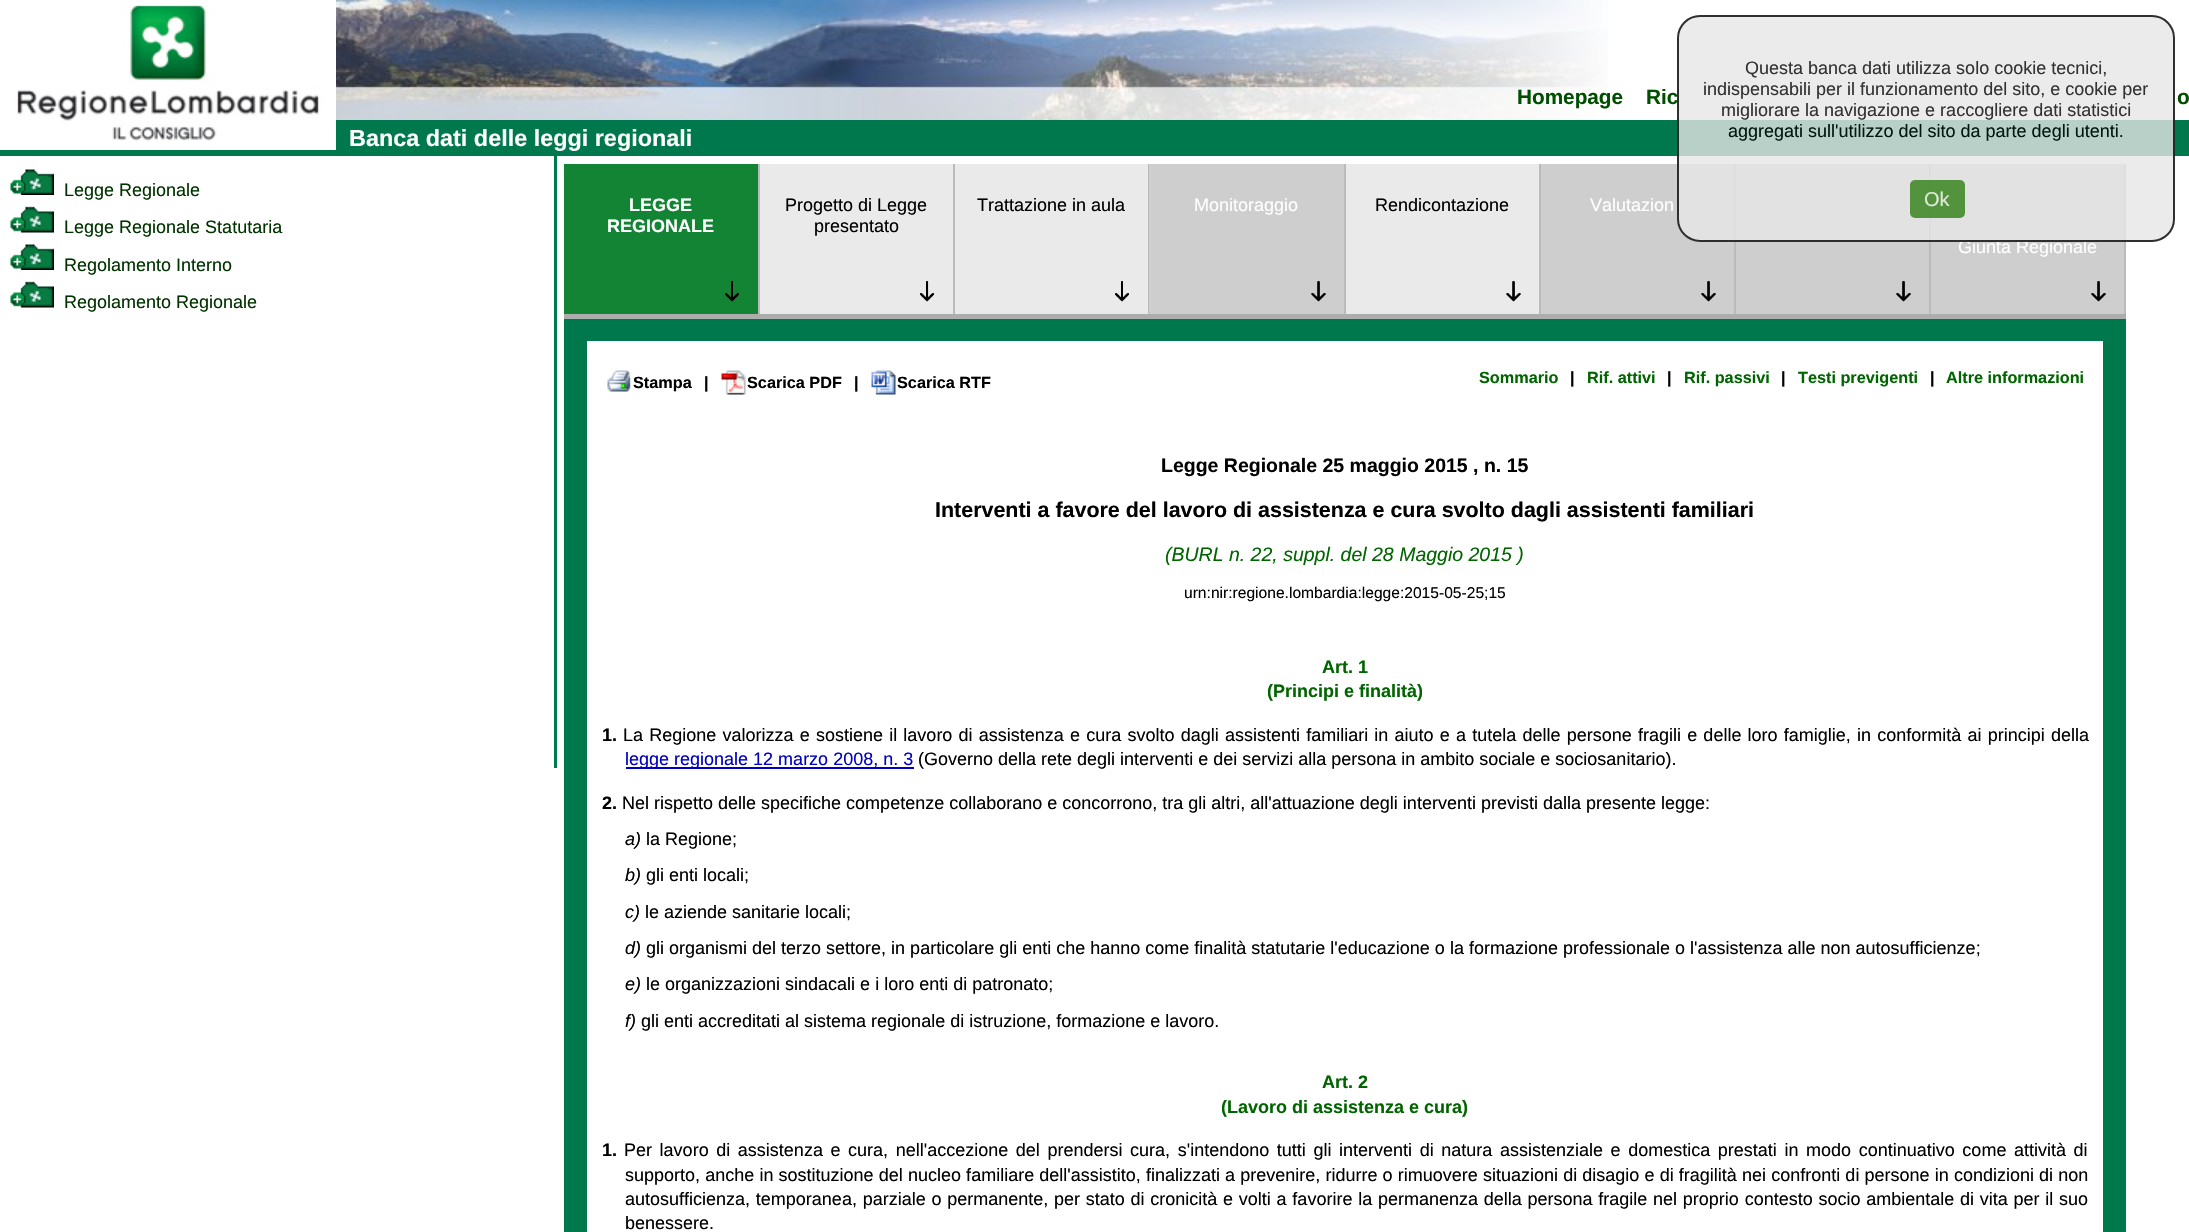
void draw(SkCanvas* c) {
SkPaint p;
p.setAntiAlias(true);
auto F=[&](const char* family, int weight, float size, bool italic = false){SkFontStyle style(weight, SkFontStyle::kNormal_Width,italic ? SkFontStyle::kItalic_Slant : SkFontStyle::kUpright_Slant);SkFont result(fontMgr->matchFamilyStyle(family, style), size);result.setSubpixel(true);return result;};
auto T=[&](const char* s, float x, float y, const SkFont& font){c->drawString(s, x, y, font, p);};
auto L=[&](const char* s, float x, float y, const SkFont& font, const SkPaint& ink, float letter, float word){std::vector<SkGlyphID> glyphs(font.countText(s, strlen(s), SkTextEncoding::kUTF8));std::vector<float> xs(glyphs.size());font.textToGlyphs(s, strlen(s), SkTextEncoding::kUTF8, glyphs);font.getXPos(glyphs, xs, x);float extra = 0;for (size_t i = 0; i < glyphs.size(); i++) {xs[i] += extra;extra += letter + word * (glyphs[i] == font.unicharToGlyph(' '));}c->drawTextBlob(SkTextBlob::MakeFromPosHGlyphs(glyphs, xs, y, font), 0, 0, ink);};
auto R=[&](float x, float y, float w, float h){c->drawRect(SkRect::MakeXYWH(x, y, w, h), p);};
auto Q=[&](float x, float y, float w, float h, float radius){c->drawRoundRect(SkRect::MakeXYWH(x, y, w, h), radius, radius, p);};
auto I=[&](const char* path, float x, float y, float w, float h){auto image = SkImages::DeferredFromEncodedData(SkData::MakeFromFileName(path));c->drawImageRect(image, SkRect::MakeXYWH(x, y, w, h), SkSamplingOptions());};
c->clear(0xffffffff);
auto f1 = F("Liberation Sans",700,20.75);
p.setColor(0xff004f00);
T("Ric",1646,104,f1);
p.setColor(0xff00784d);
R(0,120,2189,36);
p.setColor(0xffbbbbbb);
R(1734,164,2,150);
p.setColor(0xffcecece);
R(1541,164,193,150);
p.setColor(0xffbbbbbb);
R(1929,164,2,150);
p.setColor(0xffcecece);
R(1736,164,193,150);
p.setColor(0xffbbbbbb);
R(2124,164,2,150);
p.setColor(0xffcecece);
R(1931,164,193,150);
auto f2 = F("Liberation Sans",400,18);
p.setColor(0xffffffff);
T("Giunta Regionale",1958,253,f2);
p.setColor(0xcce6e6e6);
Q(1677,15,498,227,23);
p.setStroke(true);
p.setStrokeWidth(2);
p.setColor(0xcc000000);
c->drawRoundRect(SkRect::MakeXYWH(1678,16,496,225),22,22,p);
p.setStroke(false);
p.setColor(0xff333333);
T("Questa banca dati utilizza solo cookie tecnici,",1745,74,f2);
T("indispensabili per il funzionamento del sito, e cookie per",1703,95,f2);
T("migliorare la navigazione e raccogliere dati statistici",1721,116,f2);
p.setColor(0xff00180f);
T("aggregati sull'utilizzo del sito da parte degli utenti.",1728,137,f2);
p.setColor(0xcc2f7e14);
Q(1910,180,55,38,5);
auto f3 = F("Liberation Sans",400,20);
p.setColor(0xffdde9d8);
T("Ok",1924,206,f3);
I("1.png",336,0,1272,120);
I("2.png",0,0,336,150);
p.setColor(0xff004f00);
T("Homepage",1517,104,f1);
T("o",2177,104,f1);
auto f4 = F("Liberation Sans",700,23.4);
p.setColor(0xffffffff);
T("Banca dati delle leggi regionali",349,146,f4);
p.setColor(0xff00784d);
R(554,156,3,612);
I("3.png",10,169,44,26);
p.setColor(0xff003300);
T("Legge Regionale",64,196,f2);
I("4.png",10,206,44,27);
T("Legge Regionale Statutaria",64,233,f2);
I("3.png",10,244,44,26);
T("Regolamento Interno",64,271,f2);
I("4.png",10,281,44,27);
T("Regolamento Regionale",64,308,f2);
p.setColor(0xffeaeaea);
R(760,164,779,150);
p.setColor(0xffadadad);
R(564,314,1562,5);
p.setColor(0xffbbbbbb);
R(758,164,2,150);
p.setColor(0xff128434);
R(564,164,194,150);
I("5.png",725,281,14,21);
auto f5 = F("Liberation Sans",700,18);
p.setColor(0xffffffff);
T("LEGGE",629,211,f5);
T("REGIONALE",607,232,f5);
p.setColor(0xffbbbbbb);
R(953,164,2,150);
I("6.png",920,281,15,21);
p.setColor(0xff000000);
T("Progetto di Legge",785,211,f2);
T("presentato",814,232,f2);
p.setColor(0xffbbbbbb);
R(1148,164,1,150);
I("7.png",1115,281,14,21);
p.setColor(0xff000000);
T("Trattazione in aula",977,211,f2);
p.setColor(0xffbbbbbb);
R(1344,164,2,150);
p.setColor(0xffcecece);
R(1149,164,195,150);
I("8.png",1311,281,15,21);
p.setColor(0xffffffff);
T("Monitoraggio",1194,211,f2);
p.setColor(0xffbbbbbb);
R(1539,164,2,150);
I("9.png",1506,281,15,21);
p.setColor(0xff000000);
T("Rendicontazione",1375,211,f2);
I("10.png",1701,281,15,21);
p.setColor(0xffffffff);
T("Valutazion",1590,211,f2);
I("8.png",1896,281,15,21);
I("8.png",2091,281,15,21);
p.setColor(0xff00784d);
R(564,319,1562,913);
p.setColor(0xffffffff);
R(587,341,1516,891);
I("11.png",607,370,24,22);
auto f6 = F("Liberation Sans",700,16.25);
p.setColor(0xff000000);
T("Stampa",633,388,f6);
T("|",704,388,f6);
I("12.png",721,370,25,25);
T("Scarica PDF",747,388,f6);
T("|",854,388,f6);
I("13.png",871,370,25,25);
T("Scarica RTF",897,388,f6);
p.setColor(0xff006500);
T("Sommario",1479,383,f6);
p.setColor(0xff000000);
T("|",1570,383,f6);
p.setColor(0xff006500);
T("Rif. attivi",1587,383,f6);
p.setColor(0xff000000);
T("|",1667,383,f6);
p.setColor(0xff006500);
T("Rif. passivi",1684,383,f6);
p.setColor(0xff000000);
T("|",1781,383,f6);
p.setColor(0xff006500);
T("Testi previgenti",1798,383,f6);
p.setColor(0xff000000);
T("|",1930,383,f6);
p.setColor(0xff006500);
T("Altre informazioni",1946,383,f6);
auto f7 = F("Liberation Sans",700,19.5);
p.setColor(0xff000000);
T("Legge Regionale 25 maggio 2015 , n. 15",1161,472,f7);
auto f8 = F("Liberation Sans",700,21.45);
T("Interventi a favore del lavoro di assistenza e cura svolto dagli assistenti familiari",935,517,f8);
auto f9 = F("Liberation Sans",400,19.5,true);
p.setColor(0xff006500);
T("(BURL n. 22, suppl. del 28 Maggio 2015 )",1165,561,f9);
auto f10 = F("Liberation Sans",400,15.6);
p.setColor(0xff000000);
T("urn:nir:regione.lombardia:legge:2015-05-25;15",1184,598,f10);
p.setColor(0xff006500);
T("Art. 1",1322,673,f5);
T("(Principi e finalità)",1267,697,f5);
p.setColor(0xff000000);
T("1.",602,741,f5);
L("La Regione valorizza e sostiene il lavoro di assistenza e cura svolto dagli assistenti familiari in aiuto e a tutela delle persone fragili e delle loro famiglie, in conformità ai principi della",623,741,f2,p,0,1.2);
p.setColor(0xff0000c4);
R(626,767,288,2);
T("legge regionale 12 marzo 2008, n. 3",625,765,f2);
p.setColor(0xff000000);
T("(Governo della rete degli interventi e dei servizi alla persona in ambito sociale e sociosanitario).",918,765,f2);
T("2.",602,809,f5);
T("Nel rispetto delle specifiche competenze collaborano e concorrono, tra gli altri, all'attuazione degli interventi previsti dalla presente legge:",622,809,f2);
auto f11 = F("Liberation Sans",400,18,true);
T("a)",625,845,f11);
T("la Regione;",646,845,f2);
T("b)",625,881,f11);
T("gli enti locali;",646,881,f2);
T("c)",625,918,f11);
T("le aziende sanitarie locali;",645,918,f2);
T("d)",625,954,f11);
T("gli organismi del terzo settore, in particolare gli enti che hanno come finalità statutarie l'educazione o la formazione professionale o l'assistenza alle non autosufficienze;",646,954,f2);
T("e)",625,990,f11);
T("le organizzazioni sindacali e i loro enti di patronato;",646,990,f2);
T("f)",625,1027,f11);
T("gli enti accreditati al sistema regionale di istruzione, formazione e lavoro.",641,1027,f2);
p.setColor(0xff006500);
T("Art. 2",1322,1088,f5);
T("(Lavoro di assistenza e cura)",1221,1113,f5);
p.setColor(0xff000000);
T("1.",602,1156,f5);
L("Per lavoro di assistenza e cura, nell'accezione del prendersi cura, s'intendono tutti gli interventi di natura assistenziale e domestica prestati in modo continuativo come attività di",624,1156,f2,p,0,2.6);
L("supporto, anche in sostituzione del nucleo familiare dell'assistito, finalizzati a prevenire, ridurre o rimuovere situazioni di disagio e di fragilità nei confronti di persone in condizioni di non",625,1181,f2,p,0,.15);
L("autosufficienza, temporanea, parziale o permanente, per stato di cronicità e volti a favorire la permanenza della persona fragile nel proprio contesto socio ambientale di vita per il suo",625,1205,f2,p,0,.75);
T("benessere.",625,1229,f2);
}
